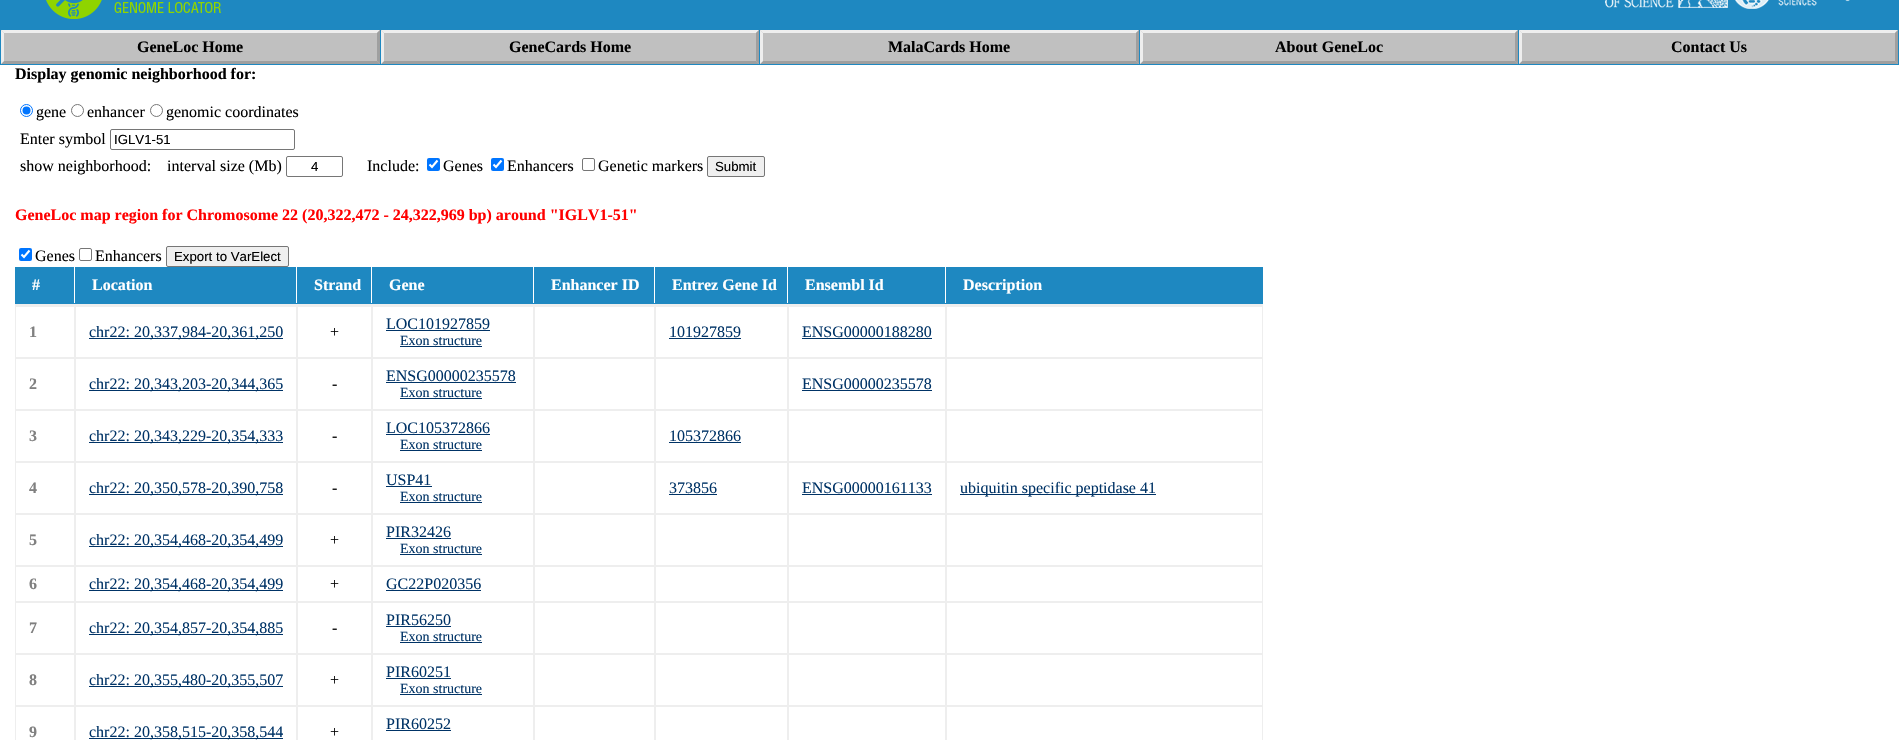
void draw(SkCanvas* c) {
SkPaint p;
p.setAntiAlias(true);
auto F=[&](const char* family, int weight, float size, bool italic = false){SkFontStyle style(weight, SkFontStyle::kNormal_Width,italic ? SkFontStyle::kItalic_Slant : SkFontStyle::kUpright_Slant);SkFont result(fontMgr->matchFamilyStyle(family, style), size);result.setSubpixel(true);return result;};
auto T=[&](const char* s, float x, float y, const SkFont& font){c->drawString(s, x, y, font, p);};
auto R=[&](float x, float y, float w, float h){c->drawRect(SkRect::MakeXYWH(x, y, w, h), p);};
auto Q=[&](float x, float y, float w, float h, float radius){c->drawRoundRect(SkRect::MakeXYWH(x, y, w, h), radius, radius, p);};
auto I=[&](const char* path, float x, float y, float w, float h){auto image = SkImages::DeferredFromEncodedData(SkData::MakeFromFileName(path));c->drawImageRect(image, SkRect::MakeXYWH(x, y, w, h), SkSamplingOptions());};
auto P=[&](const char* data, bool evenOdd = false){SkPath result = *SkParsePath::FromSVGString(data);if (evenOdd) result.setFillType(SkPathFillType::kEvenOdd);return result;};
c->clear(0xffffffff);
p.setColor(0xff1e88c1);
R(0,0,1899,65);
I("1.png",46,0,175,19);
I("2.png",1605,0,123,8);
I("3.png",1735,0,115,9);
p.setColor(0xffc0c0c0);
R(1,30,379,34);
p.setColor(0xffeeeeee);
c->drawPath(P("M1 30h379l-3 3h-373z"),p);
p.setColor(0xff9f9f9f);
c->drawPath(P("M380 30v34l-3-3v-28z"),p);
c->drawPath(P("M380 64h-379l3-3h373z"),p);
p.setColor(0xffeeeeee);
c->drawPath(P("M1 64v-34l3 3v28z"),p);
auto f1 = F("Liberation Serif",700,16);
p.setColor(0xff000000);
T("GeneLoc Home",137,52,f1);
p.setColor(0xffc0c0c0);
R(381,30,378,34);
p.setColor(0xffeeeeee);
c->drawPath(P("M381 30h378l-3 3h-372z"),p);
p.setColor(0xff9f9f9f);
c->drawPath(P("M759 30v34l-3-3v-28z"),p);
c->drawPath(P("M759 64h-378l3-3h372z"),p);
p.setColor(0xffeeeeee);
c->drawPath(P("M381 64v-34l3 3v28z"),p);
p.setColor(0xff000000);
T("GeneCards Home",509,52,f1);
p.setColor(0xffc0c0c0);
R(760,30,379,34);
p.setColor(0xffeeeeee);
c->drawPath(P("M760 30h379l-3 3h-373z"),p);
p.setColor(0xff9f9f9f);
c->drawPath(P("M1139 30v34l-3-3v-28z"),p);
c->drawPath(P("M1139 64h-379l3-3h373z"),p);
p.setColor(0xffeeeeee);
c->drawPath(P("M760 64v-34l3 3v28z"),p);
p.setColor(0xff000000);
T("MalaCards Home",888,52,f1);
p.setColor(0xffc0c0c0);
R(1140,30,378,34);
p.setColor(0xffeeeeee);
c->drawPath(P("M1140 30h378l-3 3h-372z"),p);
p.setColor(0xff9f9f9f);
c->drawPath(P("M1518 30v34l-3-3v-28z"),p);
c->drawPath(P("M1518 64h-378l3-3h372z"),p);
p.setColor(0xffeeeeee);
c->drawPath(P("M1140 64v-34l3 3v28z"),p);
p.setColor(0xff000000);
T("About GeneLoc",1275,52,f1);
p.setColor(0xffc0c0c0);
R(1519,30,379,34);
p.setColor(0xffeeeeee);
c->drawPath(P("M1519 30h379l-3 3h-373z"),p);
p.setColor(0xff9f9f9f);
c->drawPath(P("M1898 30v34l-3-3v-28z"),p);
c->drawPath(P("M1898 64h-379l3-3h373z"),p);
p.setColor(0xffeeeeee);
c->drawPath(P("M1519 64v-34l3 3v28z"),p);
p.setColor(0xff000000);
T("Contact Us",1671,52,f1);
T("Display genomic neighborhood for:",15,79,f1);
p.setStroke(true);
p.setStrokeWidth(1);
p.setColor(0xff0075ff);
c->drawCircle(26.5,110.5,6,p);
p.setStroke(false);
c->drawCircle(26.5,110.5,4,p);
auto f2 = F("Liberation Serif",400,16);
p.setColor(0xff000000);
T("gene",36,117,f2);
p.setStroke(true);
p.setColor(0xff767676);
c->drawCircle(77.5,110.5,6,p);
p.setStroke(false);
p.setColor(0xff000000);
T("enhancer",87,117,f2);
p.setStroke(true);
p.setColor(0xff767676);
c->drawCircle(156.5,110.5,6,p);
p.setStroke(false);
p.setColor(0xff000000);
T("genomic coordinates",166,117,f2);
T("Enter symbol",20,144,f2);
p.setStroke(true);
p.setColor(0xff767676);
c->drawRoundRect(SkRect::MakeXYWH(110.5,129.5,184,20),1.5,1.5,p);
auto f3 = F("Liberation Sans",400,13.25);
p.setStroke(false);
p.setColor(0xff000000);
T("IGLV1-51",114,144,f3);
T("show neighborhood:    interval size (Mb)",20,171,f2);
p.setStroke(true);
p.setColor(0xff767676);
c->drawRoundRect(SkRect::MakeXYWH(286.5,156.5,56,20),1.5,1.5,p);
p.setStroke(false);
p.setColor(0xff000000);
T("4",311,171,f3);
T("Include:",367,171,f2);
p.setColor(0xff0075ff);
Q(427,158,13,13,2);
p.setStroke(true);
p.setStrokeWidth(2.1);
p.setColor(0xffffffff);
c->drawPath(P("M429.5 164.5l2.5 2.5l5.5-6.5"),p);
p.setStroke(false);
p.setColor(0xff000000);
T("Genes",443,171,f2);
p.setColor(0xff0075ff);
Q(491,158,13,13,2);
p.setStroke(true);
p.setColor(0xffffffff);
c->drawPath(P("M493.5 164.5l2.5 2.5l5.5-6.5"),p);
p.setStroke(false);
p.setColor(0xff000000);
T("Enhancers",507,171,f2);
p.setStroke(true);
p.setStrokeWidth(1);
p.setColor(0xff767676);
c->drawRoundRect(SkRect::MakeXYWH(582.5,158.5,12,12),1.5,1.5,p);
p.setStroke(false);
p.setColor(0xff000000);
T("Genetic markers",598,171,f2);
p.setColor(0xffefefef);
c->drawRoundRect(SkRect::MakeXYWH(707.5,156.5,57,20),1.5,1.5,p);
p.setStroke(true);
p.setColor(0xff767676);
c->drawRoundRect(SkRect::MakeXYWH(707.5,156.5,57,20),1.5,1.5,p);
p.setStroke(false);
p.setColor(0xff000000);
T("Submit",715,171,f3);
p.setColor(0xffff0000);
T("GeneLoc map region for Chromosome 22 (20,322,472 - 24,322,969 bp) around \"IGLV1-51\"",15,220,f1);
p.setColor(0xff0075ff);
Q(19,248,13,13,2);
p.setStroke(true);
p.setStrokeWidth(2.1);
p.setColor(0xffffffff);
c->drawPath(P("M21.5 254.5l2.5 2.5l5.5-6.5"),p);
p.setStroke(false);
p.setColor(0xff000000);
T("Genes",35,261,f2);
p.setStroke(true);
p.setStrokeWidth(1);
p.setColor(0xff767676);
c->drawRoundRect(SkRect::MakeXYWH(79.5,248.5,12,12),1.5,1.5,p);
p.setStroke(false);
p.setColor(0xff000000);
T("Enhancers",95,261,f2);
p.setColor(0xffefefef);
c->drawRoundRect(SkRect::MakeXYWH(166.5,246.5,122,20),1.5,1.5,p);
p.setStroke(true);
p.setColor(0xff767676);
c->drawRoundRect(SkRect::MakeXYWH(166.5,246.5,122,20),1.5,1.5,p);
p.setStroke(false);
p.setColor(0xff000000);
T("Export to VarElect",174,261,f3);
p.setColor(0xff1e88c1);
R(15,267,1248,37);
p.setColor(0xffeeeeee);
R(15,304,1248,2);
p.setColor(0xffffffff);
T("#",32,290,f1);
R(74,267,1,36);
T("Location",92,290,f1);
R(296,267,1,36);
T("Strand",314,290,f1);
R(371,267,1,36);
T("Gene",389,290,f1);
R(533,267,1,36);
T("Enhancer ID",551,290,f1);
R(654,267,1,36);
T("Entrez Gene Id",672,290,f1);
R(787,267,1,36);
T("Ensembl Id",805,290,f1);
R(945,267,1,36);
T("Description",963,290,f1);
p.setStroke(true);
p.setColor(0xffeeeeee);
c->drawRect(SkRect::MakeXYWH(15.5,306.5,59,51),p);
p.setStroke(false);
p.setColor(0xff808080);
T("1",29,337,f1);
p.setStroke(true);
p.setColor(0xffeeeeee);
c->drawRect(SkRect::MakeXYWH(75.5,306.5,221,51),p);
p.setStroke(false);
p.setColor(0xff003366);
R(89,338,194,1);
T("chr22: 20,337,984-20,361,250",89,337,f2);
p.setStroke(true);
p.setColor(0xffeeeeee);
c->drawRect(SkRect::MakeXYWH(297.5,306.5,74,51),p);
p.setStroke(false);
p.setColor(0xff000000);
T("+",330,337,f2);
p.setStroke(true);
p.setColor(0xffeeeeee);
c->drawRect(SkRect::MakeXYWH(372.5,306.5,161,51),p);
p.setStroke(false);
p.setColor(0xff003366);
T("LOC101927859",386,329,f2);
R(386,330,104,1);
auto f4 = F("Liberation Serif",400,14);
T("Exon structure",400,345,f4);
R(400,346,82,1);
p.setStroke(true);
p.setColor(0xffeeeeee);
c->drawRect(SkRect::MakeXYWH(534.5,306.5,120,51),p);
c->drawRect(SkRect::MakeXYWH(655.5,306.5,132,51),p);
p.setStroke(false);
p.setColor(0xff003366);
T("101927859",669,337,f2);
R(669,338,72,1);
p.setStroke(true);
p.setColor(0xffeeeeee);
c->drawRect(SkRect::MakeXYWH(788.5,306.5,157,51),p);
p.setStroke(false);
p.setColor(0xff003366);
T("ENSG00000188280",802,337,f2);
R(802,338,130,1);
p.setStroke(true);
p.setColor(0xffeeeeee);
c->drawRect(SkRect::MakeXYWH(946.5,306.5,316,51),p);
c->drawRect(SkRect::MakeXYWH(15.5,358.5,59,51),p);
p.setStroke(false);
p.setColor(0xff808080);
T("2",29,389,f1);
p.setStroke(true);
p.setColor(0xffeeeeee);
c->drawRect(SkRect::MakeXYWH(75.5,358.5,221,51),p);
p.setStroke(false);
p.setColor(0xff003366);
R(89,390,194,1);
T("chr22: 20,343,203-20,344,365",89,389,f2);
p.setStroke(true);
p.setColor(0xffeeeeee);
c->drawRect(SkRect::MakeXYWH(297.5,358.5,74,51),p);
p.setStroke(false);
p.setColor(0xff000000);
T("-",332,389,f2);
p.setStroke(true);
p.setColor(0xffeeeeee);
c->drawRect(SkRect::MakeXYWH(372.5,358.5,161,51),p);
p.setStroke(false);
p.setColor(0xff003366);
T("ENSG00000235578",386,381,f2);
R(386,382,130,1);
T("Exon structure",400,397,f4);
R(400,398,82,1);
p.setStroke(true);
p.setColor(0xffeeeeee);
c->drawRect(SkRect::MakeXYWH(534.5,358.5,120,51),p);
c->drawRect(SkRect::MakeXYWH(655.5,358.5,132,51),p);
c->drawRect(SkRect::MakeXYWH(788.5,358.5,157,51),p);
p.setStroke(false);
p.setColor(0xff003366);
T("ENSG00000235578",802,389,f2);
R(802,390,130,1);
p.setStroke(true);
p.setColor(0xffeeeeee);
c->drawRect(SkRect::MakeXYWH(946.5,358.5,316,51),p);
c->drawRect(SkRect::MakeXYWH(15.5,410.5,59,51),p);
p.setStroke(false);
p.setColor(0xff808080);
T("3",29,441,f1);
p.setStroke(true);
p.setColor(0xffeeeeee);
c->drawRect(SkRect::MakeXYWH(75.5,410.5,221,51),p);
p.setStroke(false);
p.setColor(0xff003366);
R(89,442,194,1);
T("chr22: 20,343,229-20,354,333",89,441,f2);
p.setStroke(true);
p.setColor(0xffeeeeee);
c->drawRect(SkRect::MakeXYWH(297.5,410.5,74,51),p);
p.setStroke(false);
p.setColor(0xff000000);
T("-",332,441,f2);
p.setStroke(true);
p.setColor(0xffeeeeee);
c->drawRect(SkRect::MakeXYWH(372.5,410.5,161,51),p);
p.setStroke(false);
p.setColor(0xff003366);
T("LOC105372866",386,433,f2);
R(386,434,104,1);
T("Exon structure",400,449,f4);
R(400,450,82,1);
p.setStroke(true);
p.setColor(0xffeeeeee);
c->drawRect(SkRect::MakeXYWH(534.5,410.5,120,51),p);
c->drawRect(SkRect::MakeXYWH(655.5,410.5,132,51),p);
p.setStroke(false);
p.setColor(0xff003366);
T("105372866",669,441,f2);
R(669,442,72,1);
p.setStroke(true);
p.setColor(0xffeeeeee);
c->drawRect(SkRect::MakeXYWH(788.5,410.5,157,51),p);
c->drawRect(SkRect::MakeXYWH(946.5,410.5,316,51),p);
c->drawRect(SkRect::MakeXYWH(15.5,462.5,59,51),p);
p.setStroke(false);
p.setColor(0xff808080);
T("4",29,493,f1);
p.setStroke(true);
p.setColor(0xffeeeeee);
c->drawRect(SkRect::MakeXYWH(75.5,462.5,221,51),p);
p.setStroke(false);
p.setColor(0xff003366);
R(89,494,194,1);
T("chr22: 20,350,578-20,390,758",89,493,f2);
p.setStroke(true);
p.setColor(0xffeeeeee);
c->drawRect(SkRect::MakeXYWH(297.5,462.5,74,51),p);
p.setStroke(false);
p.setColor(0xff000000);
T("-",332,493,f2);
p.setStroke(true);
p.setColor(0xffeeeeee);
c->drawRect(SkRect::MakeXYWH(372.5,462.5,161,51),p);
p.setStroke(false);
p.setColor(0xff003366);
T("USP41",386,485,f2);
R(386,486,46,1);
T("Exon structure",400,501,f4);
R(400,502,82,1);
p.setStroke(true);
p.setColor(0xffeeeeee);
c->drawRect(SkRect::MakeXYWH(534.5,462.5,120,51),p);
c->drawRect(SkRect::MakeXYWH(655.5,462.5,132,51),p);
p.setStroke(false);
p.setColor(0xff003366);
T("373856",669,493,f2);
R(669,494,48,1);
p.setStroke(true);
p.setColor(0xffeeeeee);
c->drawRect(SkRect::MakeXYWH(788.5,462.5,157,51),p);
p.setStroke(false);
p.setColor(0xff003366);
T("ENSG00000161133",802,493,f2);
R(802,494,130,1);
p.setStroke(true);
p.setColor(0xffeeeeee);
c->drawRect(SkRect::MakeXYWH(946.5,462.5,316,51),p);
p.setStroke(false);
p.setColor(0xff003366);
R(960,494,196,1);
T("ubiquitin specific peptidase 41",960,493,f2);
p.setStroke(true);
p.setColor(0xffeeeeee);
c->drawRect(SkRect::MakeXYWH(15.5,514.5,59,51),p);
p.setStroke(false);
p.setColor(0xff808080);
T("5",29,545,f1);
p.setStroke(true);
p.setColor(0xffeeeeee);
c->drawRect(SkRect::MakeXYWH(75.5,514.5,221,51),p);
p.setStroke(false);
p.setColor(0xff003366);
R(89,546,194,1);
T("chr22: 20,354,468-20,354,499",89,545,f2);
p.setStroke(true);
p.setColor(0xffeeeeee);
c->drawRect(SkRect::MakeXYWH(297.5,514.5,74,51),p);
p.setStroke(false);
p.setColor(0xff000000);
T("+",330,545,f2);
p.setStroke(true);
p.setColor(0xffeeeeee);
c->drawRect(SkRect::MakeXYWH(372.5,514.5,161,51),p);
p.setStroke(false);
p.setColor(0xff003366);
T("PIR32426",386,537,f2);
R(386,538,65,1);
T("Exon structure",400,553,f4);
R(400,554,82,1);
p.setStroke(true);
p.setColor(0xffeeeeee);
c->drawRect(SkRect::MakeXYWH(534.5,514.5,120,51),p);
c->drawRect(SkRect::MakeXYWH(655.5,514.5,132,51),p);
c->drawRect(SkRect::MakeXYWH(788.5,514.5,157,51),p);
c->drawRect(SkRect::MakeXYWH(946.5,514.5,316,51),p);
c->drawRect(SkRect::MakeXYWH(15.5,566.5,59,35),p);
p.setStroke(false);
p.setColor(0xff808080);
T("6",29,589,f1);
p.setStroke(true);
p.setColor(0xffeeeeee);
c->drawRect(SkRect::MakeXYWH(75.5,566.5,221,35),p);
p.setStroke(false);
p.setColor(0xff003366);
R(89,590,194,1);
T("chr22: 20,354,468-20,354,499",89,589,f2);
p.setStroke(true);
p.setColor(0xffeeeeee);
c->drawRect(SkRect::MakeXYWH(297.5,566.5,74,35),p);
p.setStroke(false);
p.setColor(0xff000000);
T("+",330,589,f2);
p.setStroke(true);
p.setColor(0xffeeeeee);
c->drawRect(SkRect::MakeXYWH(372.5,566.5,161,35),p);
p.setStroke(false);
p.setColor(0xff003366);
T("GC22P020356",386,589,f2);
R(386,590,95,1);
p.setStroke(true);
p.setColor(0xffeeeeee);
c->drawRect(SkRect::MakeXYWH(534.5,566.5,120,35),p);
c->drawRect(SkRect::MakeXYWH(655.5,566.5,132,35),p);
c->drawRect(SkRect::MakeXYWH(788.5,566.5,157,35),p);
c->drawRect(SkRect::MakeXYWH(946.5,566.5,316,35),p);
c->drawRect(SkRect::MakeXYWH(15.5,602.5,59,51),p);
p.setStroke(false);
p.setColor(0xff808080);
T("7",29,633,f1);
p.setStroke(true);
p.setColor(0xffeeeeee);
c->drawRect(SkRect::MakeXYWH(75.5,602.5,221,51),p);
p.setStroke(false);
p.setColor(0xff003366);
R(89,634,194,1);
T("chr22: 20,354,857-20,354,885",89,633,f2);
p.setStroke(true);
p.setColor(0xffeeeeee);
c->drawRect(SkRect::MakeXYWH(297.5,602.5,74,51),p);
p.setStroke(false);
p.setColor(0xff000000);
T("-",332,633,f2);
p.setStroke(true);
p.setColor(0xffeeeeee);
c->drawRect(SkRect::MakeXYWH(372.5,602.5,161,51),p);
p.setStroke(false);
p.setColor(0xff003366);
T("PIR56250",386,625,f2);
R(386,626,65,1);
T("Exon structure",400,641,f4);
R(400,642,82,1);
p.setStroke(true);
p.setColor(0xffeeeeee);
c->drawRect(SkRect::MakeXYWH(534.5,602.5,120,51),p);
c->drawRect(SkRect::MakeXYWH(655.5,602.5,132,51),p);
c->drawRect(SkRect::MakeXYWH(788.5,602.5,157,51),p);
c->drawRect(SkRect::MakeXYWH(946.5,602.5,316,51),p);
c->drawRect(SkRect::MakeXYWH(15.5,654.5,59,51),p);
p.setStroke(false);
p.setColor(0xff808080);
T("8",29,685,f1);
p.setStroke(true);
p.setColor(0xffeeeeee);
c->drawRect(SkRect::MakeXYWH(75.5,654.5,221,51),p);
p.setStroke(false);
p.setColor(0xff003366);
R(89,686,194,1);
T("chr22: 20,355,480-20,355,507",89,685,f2);
p.setStroke(true);
p.setColor(0xffeeeeee);
c->drawRect(SkRect::MakeXYWH(297.5,654.5,74,51),p);
p.setStroke(false);
p.setColor(0xff000000);
T("+",330,685,f2);
p.setStroke(true);
p.setColor(0xffeeeeee);
c->drawRect(SkRect::MakeXYWH(372.5,654.5,161,51),p);
p.setStroke(false);
p.setColor(0xff003366);
T("PIR60251",386,677,f2);
R(386,678,65,1);
T("Exon structure",400,693,f4);
R(400,694,82,1);
p.setStroke(true);
p.setColor(0xffeeeeee);
c->drawRect(SkRect::MakeXYWH(534.5,654.5,120,51),p);
c->drawRect(SkRect::MakeXYWH(655.5,654.5,132,51),p);
c->drawRect(SkRect::MakeXYWH(788.5,654.5,157,51),p);
c->drawRect(SkRect::MakeXYWH(946.5,654.5,316,51),p);
c->drawRect(SkRect::MakeXYWH(15.5,706.5,59,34),p);
p.setStroke(false);
p.setColor(0xff808080);
T("9",29,737,f1);
p.setStroke(true);
p.setColor(0xffeeeeee);
c->drawRect(SkRect::MakeXYWH(75.5,706.5,221,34),p);
p.setStroke(false);
p.setColor(0xff003366);
R(89,738,194,1);
T("chr22: 20,358,515-20,358,544",89,737,f2);
p.setStroke(true);
p.setColor(0xffeeeeee);
c->drawRect(SkRect::MakeXYWH(297.5,706.5,74,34),p);
p.setStroke(false);
p.setColor(0xff000000);
T("+",330,737,f2);
p.setStroke(true);
p.setColor(0xffeeeeee);
c->drawRect(SkRect::MakeXYWH(372.5,706.5,161,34),p);
p.setStroke(false);
p.setColor(0xff003366);
T("PIR60252",386,729,f2);
R(386,730,65,1);
p.setStroke(true);
p.setColor(0xffeeeeee);
c->drawRect(SkRect::MakeXYWH(534.5,706.5,120,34),p);
c->drawRect(SkRect::MakeXYWH(655.5,706.5,132,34),p);
c->drawRect(SkRect::MakeXYWH(788.5,706.5,157,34),p);
c->drawRect(SkRect::MakeXYWH(946.5,706.5,316,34),p);
}
